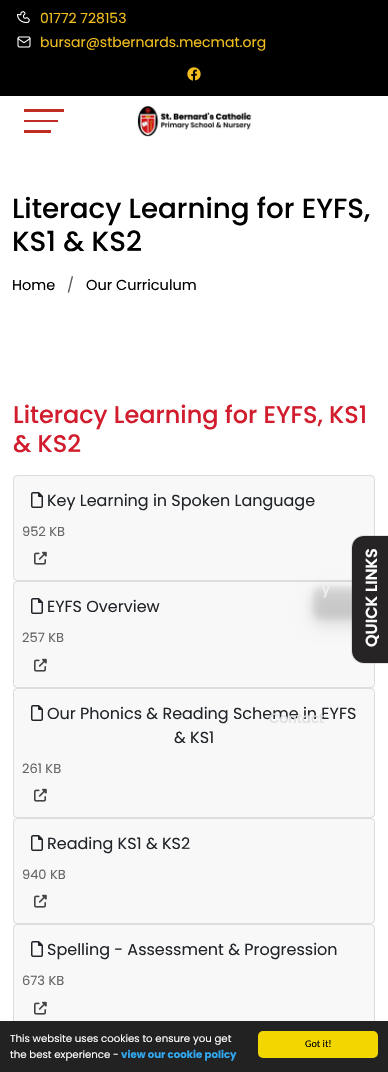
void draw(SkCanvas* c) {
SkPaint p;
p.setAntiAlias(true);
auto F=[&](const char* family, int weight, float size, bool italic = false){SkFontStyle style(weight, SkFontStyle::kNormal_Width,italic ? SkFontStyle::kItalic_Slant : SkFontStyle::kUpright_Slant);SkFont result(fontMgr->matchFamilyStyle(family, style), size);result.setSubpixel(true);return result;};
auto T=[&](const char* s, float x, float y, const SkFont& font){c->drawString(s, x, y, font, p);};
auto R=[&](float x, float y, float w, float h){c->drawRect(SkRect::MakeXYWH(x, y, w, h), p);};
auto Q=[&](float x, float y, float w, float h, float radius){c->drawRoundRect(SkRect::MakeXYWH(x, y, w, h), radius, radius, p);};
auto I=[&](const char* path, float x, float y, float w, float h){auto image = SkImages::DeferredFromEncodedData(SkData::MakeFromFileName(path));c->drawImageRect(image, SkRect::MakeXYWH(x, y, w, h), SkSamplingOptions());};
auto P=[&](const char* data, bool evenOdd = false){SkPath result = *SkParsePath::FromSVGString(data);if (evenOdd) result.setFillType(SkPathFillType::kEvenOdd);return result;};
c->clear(0xffffffff);
p.setColor(0xff000000);
R(0,0,388,96);
I("1.png",17,11,13,13);
auto f1 = F("Poppins",400,14);
p.setColor(0xfff2bf1e);
T("01772 728153",40,23,f1);
I("2.png",17,36,14,12);
T("bursar@stbernards.mecmat.org",40,47,f1);
I("3.png",187,67,14,14);
p.setColor(0xffbf2d25);
R(24,109,40,3);
R(24,120,34,2);
R(24,130,27,3);
I("4.png",137,106,115,31);
auto f2 = F("Poppins",500,27.75);
p.setColor(0xff000000);
T("Literacy Learning for EYFS,",12,218,f2);
T("KS1 & KS2",12,251,f2);
auto f3 = F("Poppins",400,14.5);
T("Home",12,290,f3);
p.setColor(0xff595c5f);
T("/",67,290,f3);
p.setColor(0xff000000);
T("Our Curriculum",86,290,f3);
auto f4 = F("Poppins",500,24);
p.setColor(0xffd11d2d);
T("Literacy Learning for EYFS, KS1",13,423,f4);
T("& KS2",13,452,f4);
p.setStroke(true);
p.setStrokeWidth(1);
p.setColor(0xffdddddd);
c->drawRoundRect(SkRect::MakeXYWH(13.5,475.5,361,105),3.5,3.5,p);
p.setStroke(false);
p.setColor(0x08212529);
R(14,476,360,104);
I("5.png",31,492,12,16);
auto f5 = F("Poppins",400,16);
p.setColor(0xff212529);
T("Key Learning in Spoken Language",47,506,f5);
auto f6 = F("Poppins",400,13);
p.setColor(0xff666666);
T("952 KB",22,536,f6);
I("6.png",34,551,13,14);
p.setStroke(true);
p.setColor(0xffdddddd);
c->drawRoundRect(SkRect::MakeXYWH(13.5,581.5,361,106),3.5,3.5,p);
p.setStroke(false);
p.setColor(0x08212529);
R(14,582,360,105);
I("5.png",31,598,12,16);
p.setColor(0xff212529);
T("EYFS Overview",47,612,f5);
p.setColor(0xff666666);
T("257 KB",22,642,f6);
I("6.png",34,658,13,14);
p.setStroke(true);
p.setColor(0xffdddddd);
c->drawRoundRect(SkRect::MakeXYWH(13.5,688.5,361,129),3.5,3.5,p);
p.setStroke(false);
p.setColor(0x08212529);
R(14,689,360,128);
I("5.png",31,705,12,16);
p.setColor(0xff212529);
T("Our Phonics & Reading Scheme in EYFS",47,719,f5);
T("& KS1",174,743,f5);
p.setColor(0xff666666);
T("261 KB",22,773,f6);
I("6.png",34,788,13,14);
p.setStroke(true);
p.setColor(0xffdddddd);
c->drawRoundRect(SkRect::MakeXYWH(13.5,818.5,361,105),3.5,3.5,p);
p.setStroke(false);
p.setColor(0x08212529);
R(14,819,360,104);
I("5.png",31,835,12,16);
p.setColor(0xff212529);
T("Reading KS1 & KS2",47,849,f5);
p.setColor(0xff666666);
T("940 KB",22,879,f6);
I("6.png",34,894,13,14);
p.setStroke(true);
p.setColor(0xffdddddd);
c->drawRoundRect(SkRect::MakeXYWH(13.5,924.5,361,106),3.5,3.5,p);
p.setStroke(false);
p.setColor(0x08212529);
R(14,925,360,96);
I("5.png",31,941,12,16);
p.setColor(0xff212529);
T("Spelling - Assessment & Progression",47,955,f5);
p.setColor(0xff666666);
T("673 KB",22,985,f6);
I("6.png",34,1001,13,14);
p.setColor(0x1a000000);
p.setMaskFilter(SkMaskFilter::MakeBlur(kNormal_SkBlurStyle, 3));
c->drawRoundRect(SkRect::MakeXYWH(313,587,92,32),8,8,p);
p.setMaskFilter(nullptr);
p.setMaskFilter(SkMaskFilter::MakeBlur(kNormal_SkBlurStyle, 7.5));
c->drawRoundRect(SkRect::MakeXYWH(312,592,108,34),9,9,p);
p.setMaskFilter(nullptr);
auto f7 = F("Poppins",500,13.5);
p.setColor(0xfff2f2f2);
T("y",322,594,f7);
p.setColor(0xffdddede);
T("Contact",269,723,f7);
p.setStroke(true);
p.setColor(0x1a000000);
c->drawPath(P("M351.5 651v-103c0-7 5.5-12.5 12.5-12.5h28.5v128h-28.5c-7 0-12.5-6-12.5-12.5z"),p);
p.setStroke(false);
p.setColor(0xff272425);
c->drawPath(P("M352 651v-103c0-7 5-12 12-12h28v127h-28c-7 0-12-6-12-12z"),p);
auto f8 = F("Poppins",600,16);
p.setColor(0xffffffff);
c->save();
c->rotate(-90,377,647);
T("QUICK LINKS",377,647,f8);
c->restore();
p.setColor(0xff222222);
R(0,1021,388,51);
auto f9 = F("Poppins",400,10.2);
p.setColor(0xffffffff);
T("This website uses cookies to ensure you get",10,1042,f9);
T("the best experience -",10,1058,f9);
auto f10 = F("Poppins",700,10.2);
p.setColor(0xff31a8f0);
T("view our cookie policy",121,1058,f10);
p.setColor(0xfff1d600);
Q(258,1031,120,27,5);
auto f11 = F("Carlito",400,10.2);
p.setColor(0xff000000);
T("Got it!",305,1047,f11);
}
